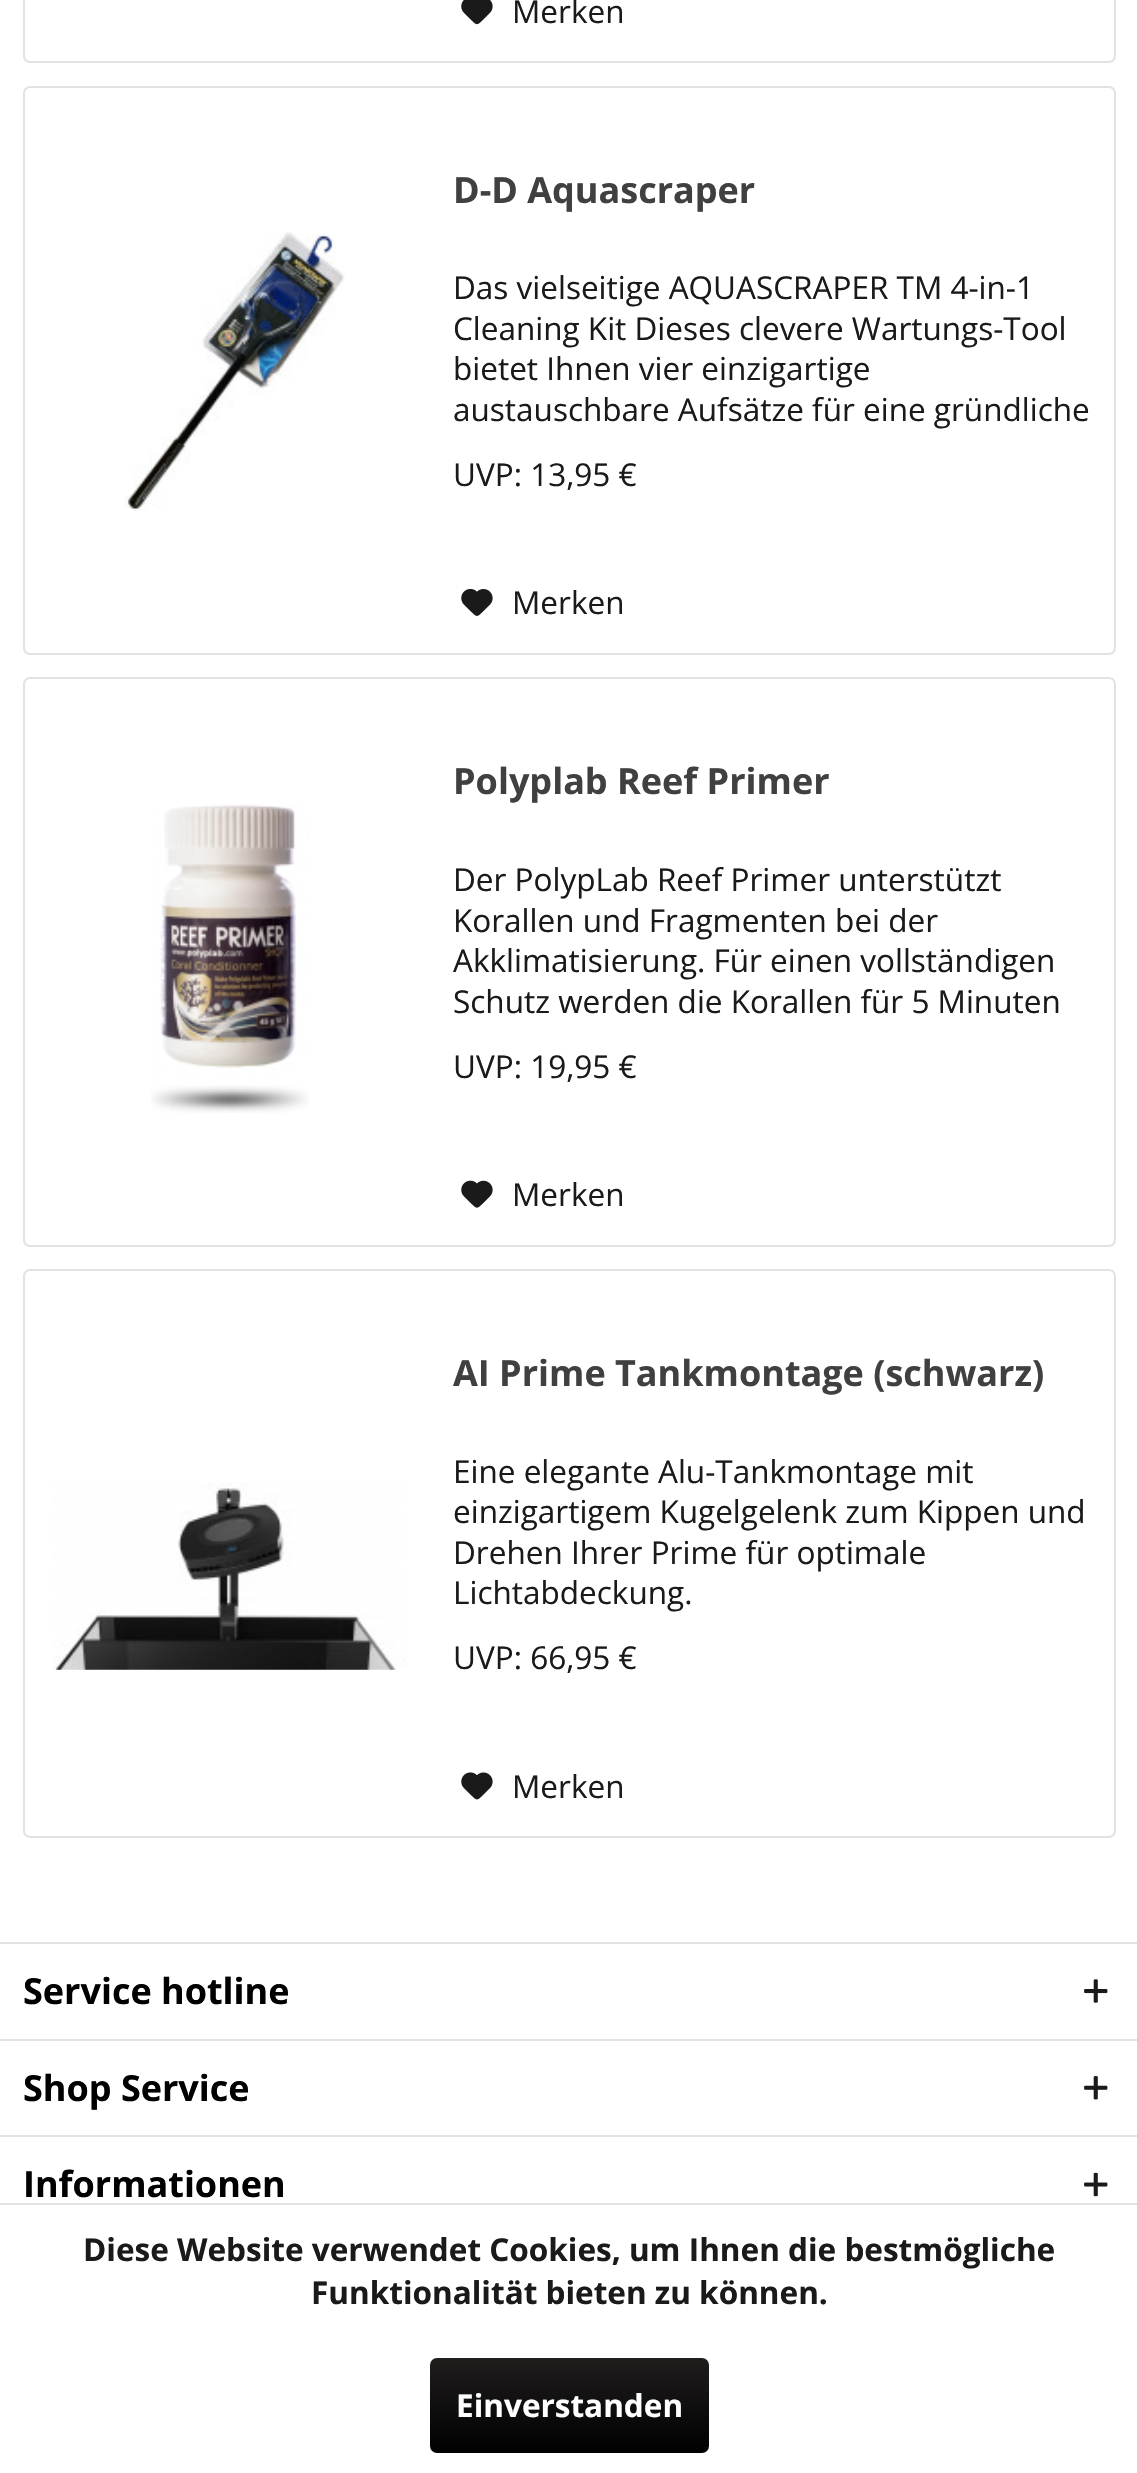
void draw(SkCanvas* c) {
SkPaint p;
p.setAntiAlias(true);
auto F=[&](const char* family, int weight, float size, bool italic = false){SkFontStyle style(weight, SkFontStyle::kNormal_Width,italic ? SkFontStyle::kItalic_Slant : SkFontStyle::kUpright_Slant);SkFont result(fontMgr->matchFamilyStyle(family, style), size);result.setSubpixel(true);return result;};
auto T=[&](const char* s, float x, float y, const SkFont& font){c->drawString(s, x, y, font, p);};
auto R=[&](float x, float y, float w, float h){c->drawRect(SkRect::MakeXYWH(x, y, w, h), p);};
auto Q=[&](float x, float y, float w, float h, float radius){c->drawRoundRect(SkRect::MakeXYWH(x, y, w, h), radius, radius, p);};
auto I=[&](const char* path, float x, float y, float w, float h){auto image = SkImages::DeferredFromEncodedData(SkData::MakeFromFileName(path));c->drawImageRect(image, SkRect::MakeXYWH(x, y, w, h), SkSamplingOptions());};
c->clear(0xffffffff);
p.setStroke(true);
p.setStrokeWidth(2);
p.setColor(0xffe2e2e2);
c->drawRoundRect(SkRect::MakeXYWH(24,-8,1091,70),6,6,p);
I("1.png",461,0,32,25);
auto f1 = F("Open Sans",400,31.5);
p.setStroke(false);
p.setColor(0xff1a1a1a);
T("Merken",512,23,f1);
p.setStroke(true);
p.setColor(0xffe2e2e2);
c->drawRoundRect(SkRect::MakeXYWH(24,87,1091,567),6,6,p);
auto f2 = F("Open Sans",700,36);
p.setStroke(false);
p.setColor(0xff404040);
T("D-D Aquascraper",453,203,f2);
I("2.png",124,231,221,280);
p.setColor(0xff1a1a1a);
T("Das vielseitige AQUASCRAPER TM 4-in-1",453,299,f1);
T("Cleaning Kit Dieses clevere Wartungs-Tool",453,340,f1);
T("bietet Ihnen vier einzigartige",453,380,f1);
T("austauschbare Aufsätze für eine gründliche",453,421,f1);
T("UVP: 13,95 €",453,486,f1);
I("3.png",461,588,32,28);
T("Merken",512,614,f1);
p.setStroke(true);
p.setColor(0xffe2e2e2);
c->drawRoundRect(SkRect::MakeXYWH(24,678,1091,568),6,6,p);
p.setStroke(false);
p.setColor(0xff404040);
T("Polyplab Reef Primer",453,794,f2);
I("4.png",151,804,158,309);
p.setColor(0xff1a1a1a);
T("Der PolypLab Reef Primer unterstützt",453,891,f1);
T("Korallen und Fragmenten bei der",453,932,f1);
T("Akklimatisierung. Für einen vollständigen",453,972,f1);
T("Schutz werden die Korallen für 5 Minuten",453,1013,f1);
T("UVP: 19,95 €",453,1078,f1);
I("5.png",461,1180,32,28);
T("Merken",512,1206,f1);
p.setStroke(true);
p.setColor(0xffe2e2e2);
c->drawRoundRect(SkRect::MakeXYWH(24,1270,1091,567),6,6,p);
p.setStroke(false);
p.setColor(0xff404040);
T("AI Prime Tankmontage (schwarz)",453,1386,f2);
I("6.png",52,1482,355,188);
p.setColor(0xff1a1a1a);
T("Eine elegante Alu-Tankmontage mit",453,1483,f1);
T("einzigartigem Kugelgelenk zum Kippen und",453,1523,f1);
T("Drehen Ihrer Prime für optimale",453,1564,f1);
T("Lichtabdeckung.",453,1604,f1);
T("UVP: 66,95 €",453,1669,f1);
I("7.png",461,1772,32,28);
T("Merken",512,1798,f1);
p.setColor(0xffe2e2e2);
R(0,1942,1137,2);
p.setColor(0xff000000);
T("Service hotline",23,2004,f2);
I("8.png",1084,1979,24,24);
p.setColor(0xffe2e2e2);
R(0,2039,1137,2);
p.setColor(0xff000000);
T("Shop Service",23,2101,f2);
I("9.png",1084,2076,24,24);
p.setColor(0xffe2e2e2);
R(0,2135,1137,2);
p.setColor(0xff000000);
T("Informationen",23,2197,f2);
I("10.png",1084,2172,24,25);
p.setColor(0xffe2e2e2);
R(0,2203,1137,2);
auto f3 = F("Open Sans",700,31.5);
p.setColor(0xff1a1a1a);
T("Diese Website verwendet Cookies, um Ihnen die bestmögliche",83,2261,f3);
T("Funktionalität bieten zu können.",311,2304,f3);
{
const SkColor colors[] = {0xff201d1d,0xff000000};
const float stops[] = {0,1};
const SkPoint ends[] = {{569,2358}, {569,2453}};
p.setShader(SkGradientShader::MakeLinear(ends, colors, stops, 2, SkTileMode::kClamp));
p.setAlpha(255);
}
Q(430,2358,279,95,7);
p.setShader(nullptr);
p.setColor(0xffffffff);
T("Einverstanden",456,2417,f3);
}
